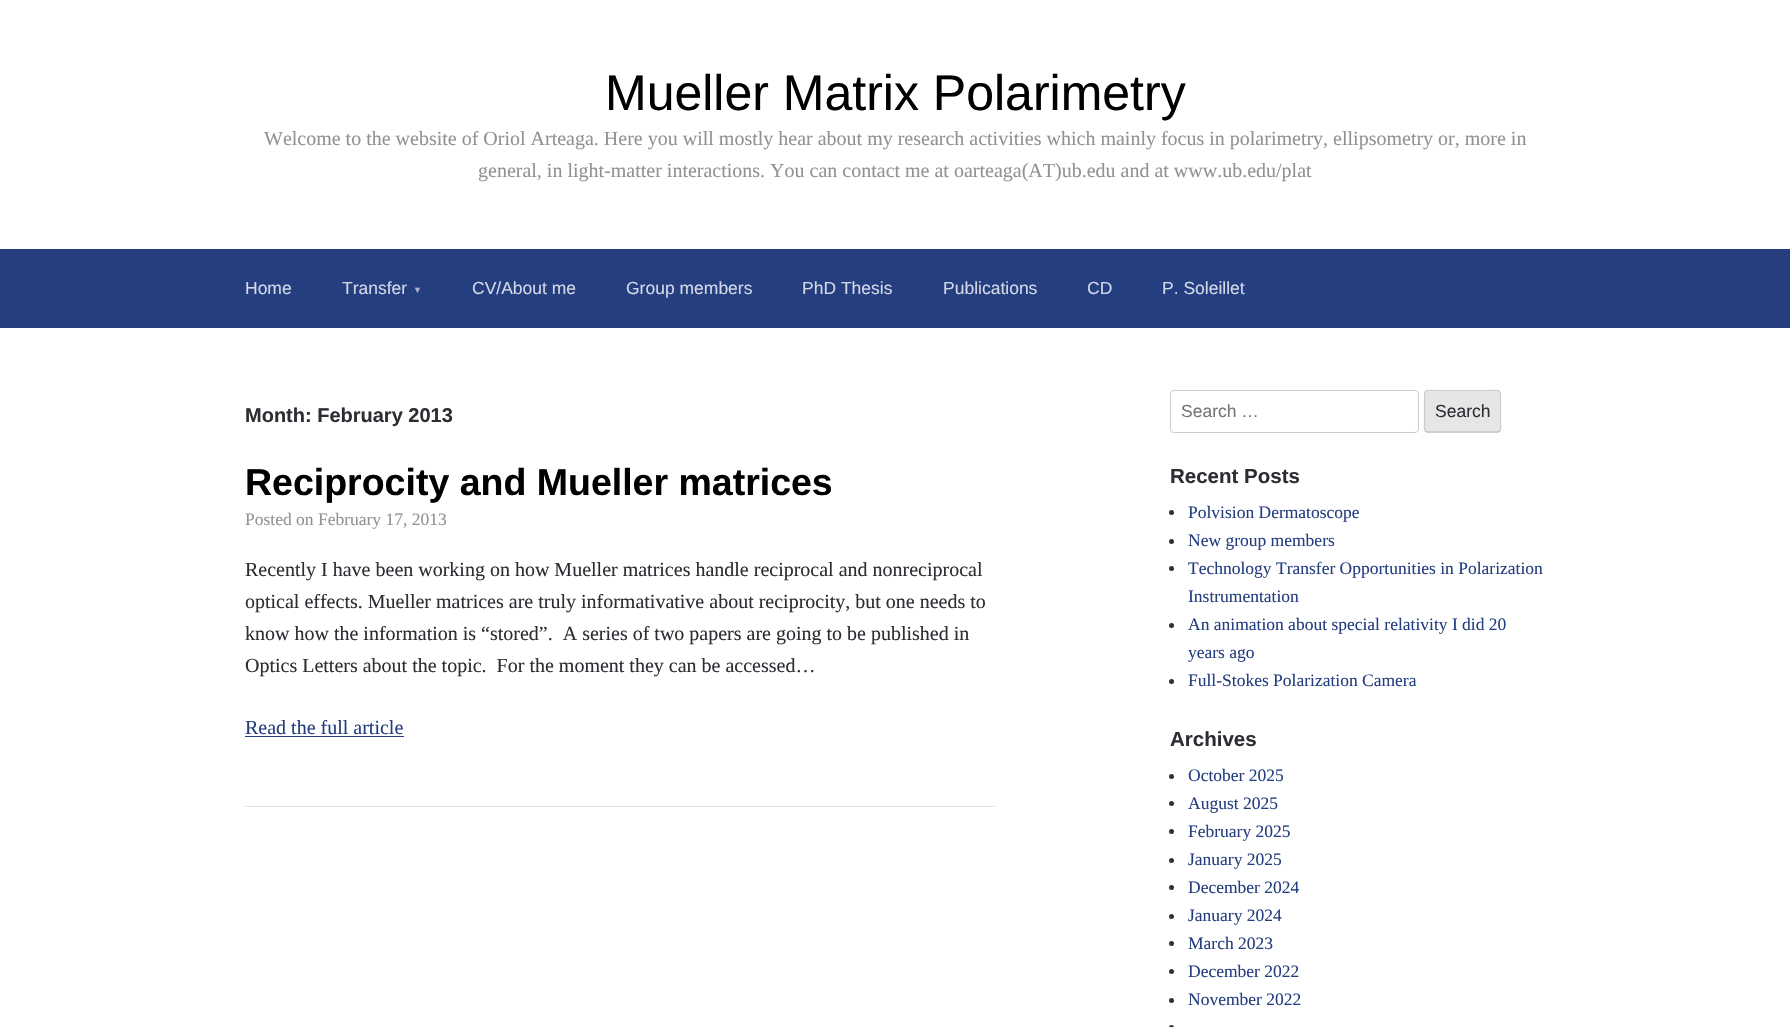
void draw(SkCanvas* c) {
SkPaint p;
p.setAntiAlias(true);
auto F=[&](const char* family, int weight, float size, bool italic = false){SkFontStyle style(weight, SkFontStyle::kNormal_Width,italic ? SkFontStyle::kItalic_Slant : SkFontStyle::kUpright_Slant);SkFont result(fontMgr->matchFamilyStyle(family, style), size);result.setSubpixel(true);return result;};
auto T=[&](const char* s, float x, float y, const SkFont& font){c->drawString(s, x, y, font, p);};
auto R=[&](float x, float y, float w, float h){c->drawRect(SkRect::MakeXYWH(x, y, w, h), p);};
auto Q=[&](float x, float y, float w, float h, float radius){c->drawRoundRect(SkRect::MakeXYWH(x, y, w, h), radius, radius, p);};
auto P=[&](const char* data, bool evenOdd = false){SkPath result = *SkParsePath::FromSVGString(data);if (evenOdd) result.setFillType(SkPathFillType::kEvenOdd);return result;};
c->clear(0xffffffff);
auto f1 = F("Liberation Sans",400,50);
p.setColor(0xff000000);
T("Mueller Matrix Polarimetry",605,110,f1);
auto f2 = F("Liberation Serif",400,20);
p.setColor(0xff929292);
T("Welcome to the website of Oriol Arteaga. Here you will mostly hear about my research activities which mainly focus in polarimetry, ellipsometry or, more in",264,145,f2);
T("general, in light-matter interactions. You can contact me at oarteaga(AT)ub.edu and at www.ub.edu/plat",478,177,f2);
p.setColor(0xff253e80);
R(0,249,1790,79);
auto f3 = F("Liberation Sans",400,17.5);
p.setColor(0xffd3d8e6);
T("Home",245,294,f3);
T("Transfer",342,294,f3);
auto f4 = F("Liberation Sans",400,9);
p.setColor(0xffa8b2cc);
T("▼",413,293,f4);
p.setColor(0xffd3d8e6);
T("CV/About me",472,294,f3);
T("Group members",626,294,f3);
T("PhD Thesis",802,294,f3);
T("Publications",943,294,f3);
T("CD",1087,294,f3);
T("P. Soleillet",1162,294,f3);
auto f5 = F("Liberation Sans",700,20);
p.setColor(0xff2d2e33);
T("Month: February 2013",245,422,f5);
p.setColor(0xffe4e4e4);
R(245,806,750,1);
auto f6 = F("Liberation Sans",700,37.5);
p.setColor(0xff000000);
T("Reciprocity and Mueller matrices",245,495,f6);
auto f7 = F("Liberation Serif",400,17.5);
p.setColor(0xff929292);
T("Posted on February 17, 2013",245,525,f7);
p.setColor(0xff2d2e33);
T("Recently I have been working on how Mueller matrices handle reciprocal and nonreciprocal",245,576,f2);
T("optical effects. Mueller matrices are truly informativative about reciprocity, but one needs to",245,608,f2);
T("know how the information is “stored”.  A series of two papers are going to be published in",245,640,f2);
T("Optics Letters about the topic.  For the moment they can be accessed…",245,672,f2);
p.setColor(0xff253e80);
T("Read the full article",245,734,f2);
R(245,736,159,1);
p.setStroke(true);
p.setStrokeWidth(1);
p.setColor(0xffcccccc);
c->drawRoundRect(SkRect::MakeXYWH(1170.5,390.5,248,42),3.5,3.5,p);
p.setStroke(false);
p.setColor(0xff757575);
T("Search …",1181,417,f3);
p.setColor(0xffe6e6e6);
Q(1424,390,77,43,4);
p.setStroke(true);
p.setStrokeWidth(1.2);
p.setColor(0xffbbbbbb);
c->drawPath(P("M1499.5 431l-1.5 1h-71l-1.5-1"),p);
p.setColor(0xffcccccc);
c->drawPath(P("M1425.5 431c-2-2-1-6.5-1-8v-23.5c0-12 1-9 14.5-9h47c13.5 0 14.5-3 14.5 9v23.5c0 1.5 1 6-1 8"),p);
p.setStroke(false);
p.setColor(0xff2d2e33);
T("Search",1435,417,f3);
auto f8 = F("Liberation Sans",700,20.5);
T("Recent Posts",1170,483,f8);
p.setColor(0xff303135);
c->drawCircle(1171.5,512.5,2.5,p);
p.setColor(0xff253e80);
T("Polvision Dermatoscope",1188,518,f7);
p.setColor(0xff303135);
c->drawCircle(1171.5,541.5,2.5,p);
p.setColor(0xff253e80);
T("New group members",1188,546,f7);
p.setColor(0xff303135);
c->drawCircle(1171.5,568.5,2.5,p);
p.setColor(0xff253e80);
T("Technology Transfer Opportunities in Polarization",1188,574,f7);
T("Instrumentation",1188,602,f7);
p.setColor(0xff303135);
c->drawCircle(1171.5,625.5,2.5,p);
p.setColor(0xff253e80);
T("An animation about special relativity I did 20",1188,630,f7);
T("years ago",1188,658,f7);
p.setColor(0xff303135);
c->drawCircle(1171.5,681.5,2.5,p);
p.setColor(0xff253e80);
T("Full-Stokes Polarization Camera",1188,686,f7);
p.setColor(0xff2d2e33);
T("Archives",1170,746,f8);
p.setColor(0xff303135);
c->drawCircle(1171.5,776.5,2.5,p);
p.setColor(0xff253e80);
T("October 2025",1188,781,f7);
p.setColor(0xff303135);
c->drawCircle(1171.5,803.5,2.5,p);
p.setColor(0xff253e80);
T("August 2025",1188,809,f7);
p.setColor(0xff303135);
c->drawCircle(1171.5,831.5,2.5,p);
p.setColor(0xff253e80);
T("February 2025",1188,837,f7);
p.setColor(0xff303135);
c->drawCircle(1171.5,860.5,2.5,p);
p.setColor(0xff253e80);
T("January 2025",1188,865,f7);
p.setColor(0xff303135);
c->drawCircle(1171.5,887.5,2.5,p);
p.setColor(0xff253e80);
T("December 2024",1188,893,f7);
p.setColor(0xff303135);
c->drawCircle(1171.5,916.5,2.5,p);
p.setColor(0xff253e80);
T("January 2024",1188,921,f7);
p.setColor(0xff303135);
c->drawCircle(1171.5,943.5,2.5,p);
p.setColor(0xff253e80);
T("March 2023",1188,949,f7);
p.setColor(0xff303135);
c->drawCircle(1171.5,971.5,2.5,p);
p.setColor(0xff253e80);
T("December 2022",1188,977,f7);
p.setColor(0xff303135);
c->drawCircle(1171.5,1000.5,2.5,p);
p.setColor(0xff253e80);
T("November 2022",1188,1005,f7);
p.setColor(0xff303135);
c->drawCircle(1171.5,1027.5,2.5,p);
}
